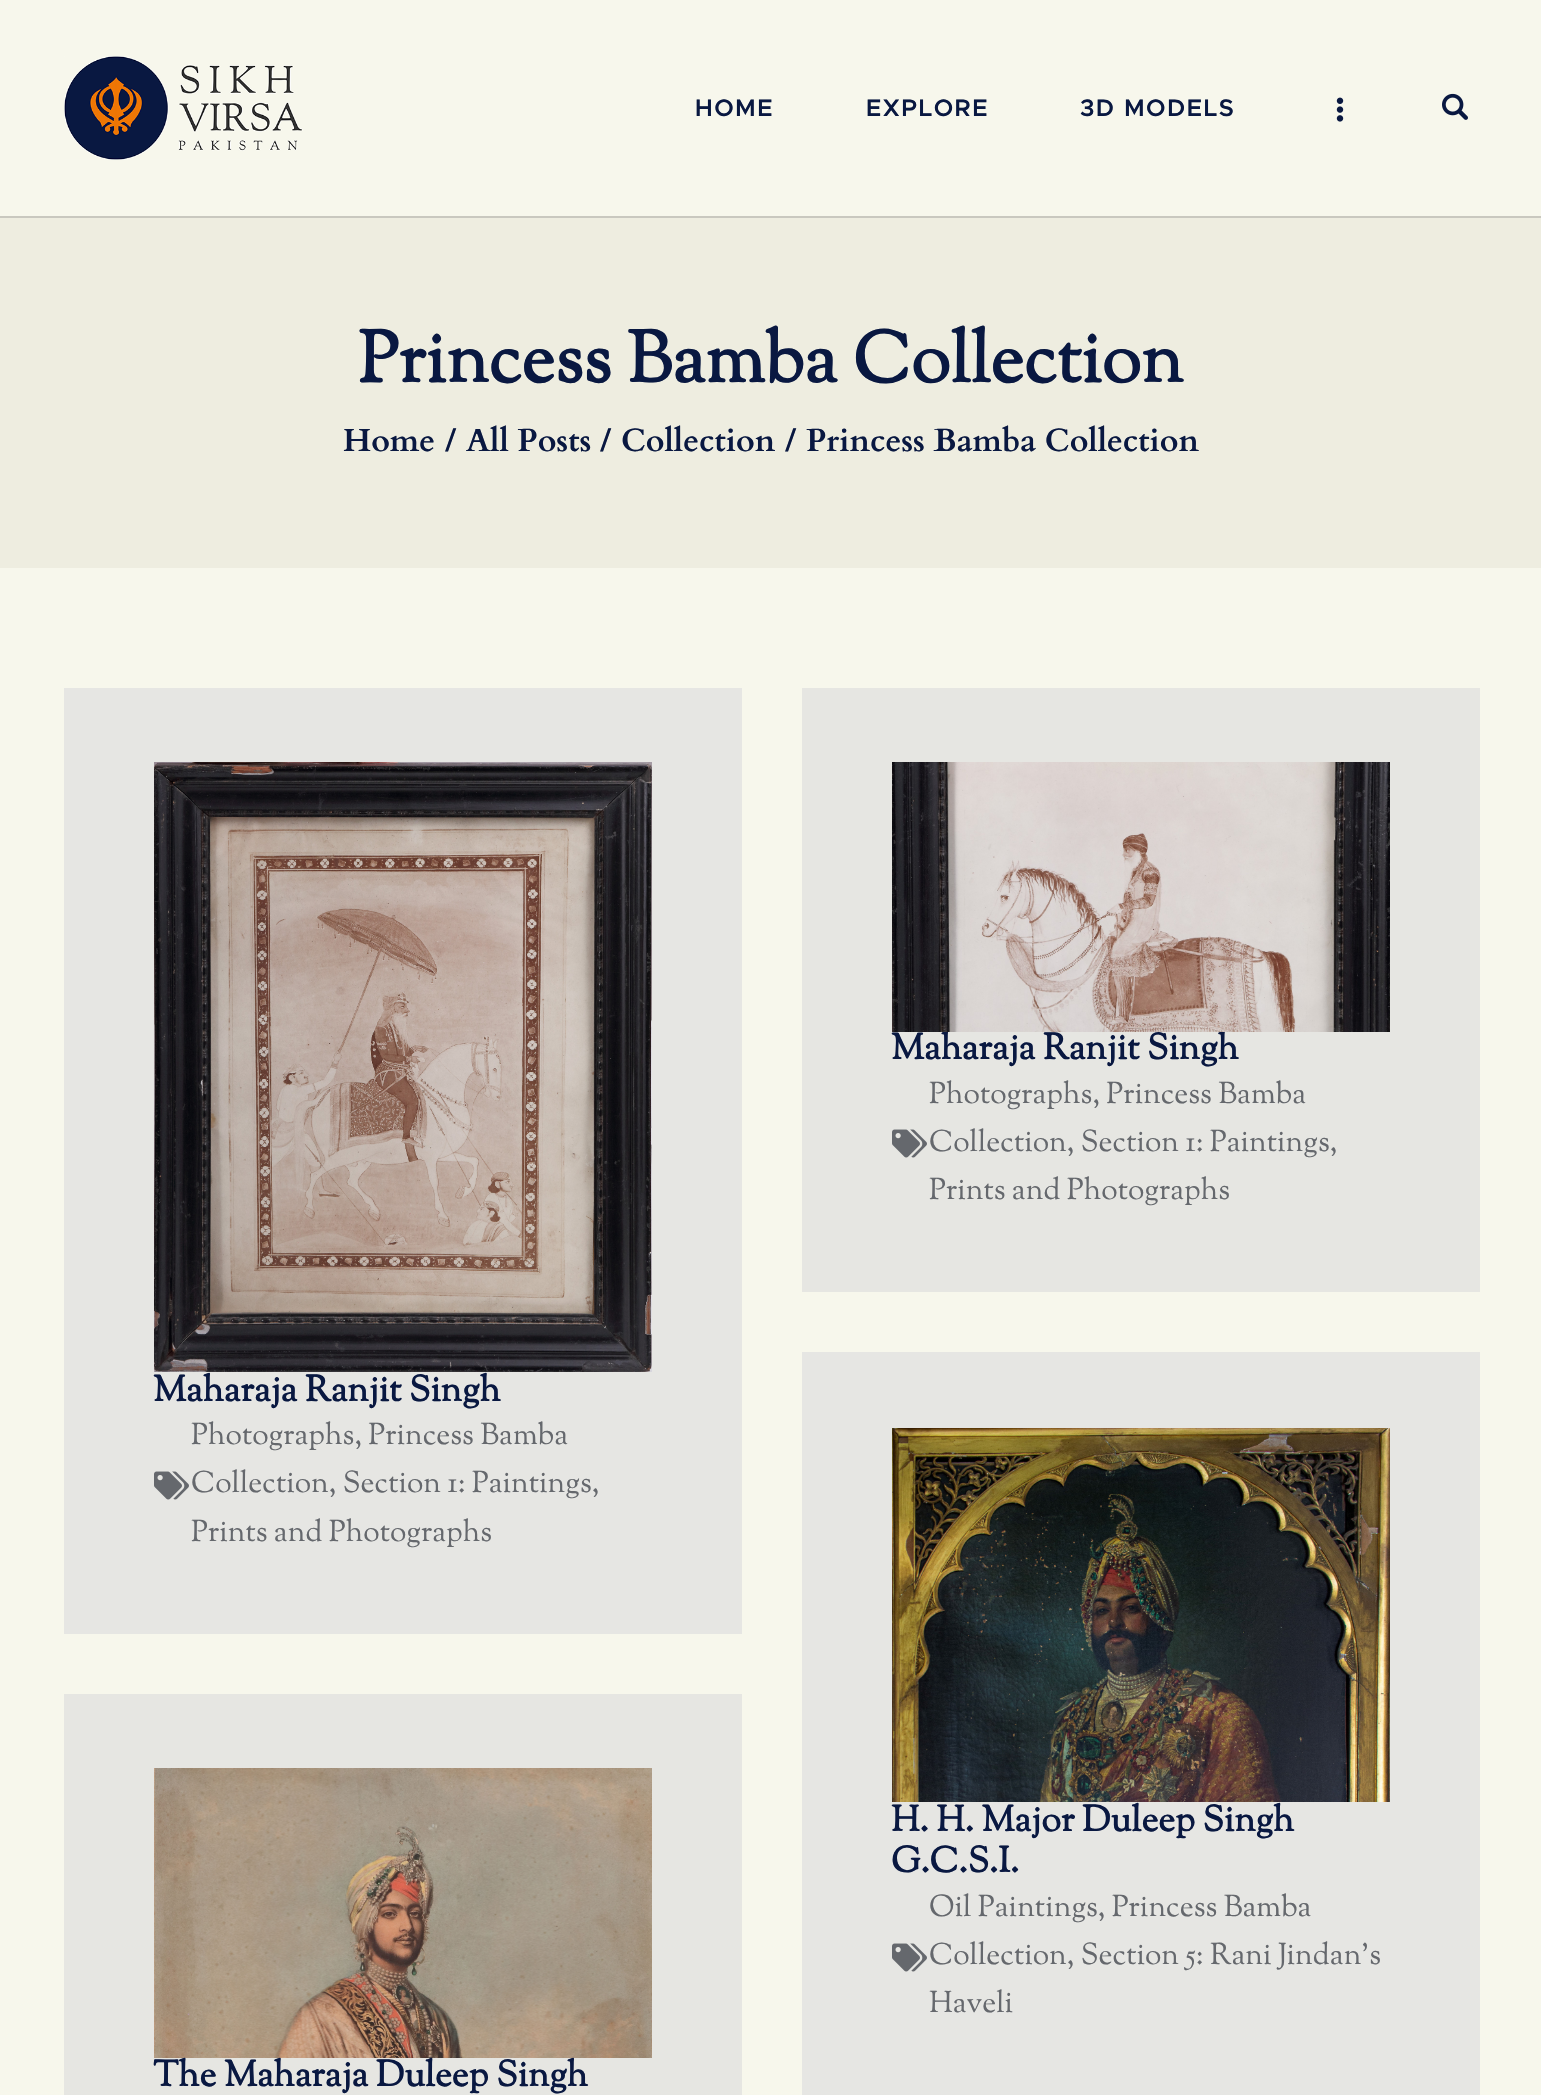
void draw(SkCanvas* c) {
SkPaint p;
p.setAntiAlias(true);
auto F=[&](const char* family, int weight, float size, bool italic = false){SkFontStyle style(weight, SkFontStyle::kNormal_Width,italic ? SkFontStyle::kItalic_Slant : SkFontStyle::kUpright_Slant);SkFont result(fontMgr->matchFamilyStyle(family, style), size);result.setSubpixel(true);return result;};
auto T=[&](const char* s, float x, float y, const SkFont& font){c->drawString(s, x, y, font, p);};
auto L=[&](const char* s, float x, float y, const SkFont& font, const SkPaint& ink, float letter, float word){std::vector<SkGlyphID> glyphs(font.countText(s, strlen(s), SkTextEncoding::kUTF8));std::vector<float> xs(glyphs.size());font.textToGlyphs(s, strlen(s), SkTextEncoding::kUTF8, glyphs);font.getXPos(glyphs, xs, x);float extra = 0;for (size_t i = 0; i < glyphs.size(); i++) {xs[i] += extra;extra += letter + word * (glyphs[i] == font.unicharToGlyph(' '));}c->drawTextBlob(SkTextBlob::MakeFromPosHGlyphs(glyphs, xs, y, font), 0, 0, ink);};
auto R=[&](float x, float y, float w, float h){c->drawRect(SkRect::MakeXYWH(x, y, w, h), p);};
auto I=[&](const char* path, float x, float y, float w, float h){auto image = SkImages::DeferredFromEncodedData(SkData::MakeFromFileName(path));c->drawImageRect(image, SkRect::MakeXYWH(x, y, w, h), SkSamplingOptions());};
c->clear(0xfff7f7ec);
p.setColor(0xffc9c8bf);
R(0,216,1541,2);
I("1.png",64,56,239,104);
auto f1 = F("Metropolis",600,24);
p.setColor(0xff091841);
L("HOME",695,116,f1,p,1.5,0);
L("EXPLORE",866,116,f1,p,1.5,0);
L("3D MODELS",1080,116,f1,p,1.5,0);
I("2.png",1336,97,8,25);
I("3.png",1442,93,26,27);
p.setColor(0xffeeede0);
R(0,218,1541,350);
auto f2 = F("Sorts Mill Goudy",700,72);
p.setColor(0xff091841);
T("Princess Bamba Collection",358,382,f2);
auto f3 = F("Cardo",700,32);
T("Home",343,451,f3);
T("/",445,451,f3);
T("All Posts",466,451,f3);
T("/",600,451,f3);
T("Collection",621,451,f3);
T("/",785,451,f3);
T("Princess Bamba Collection",806,451,f3);
p.setColor(0xffe6e6e2);
R(802,688,678,604);
auto f4 = F("Sorts Mill Goudy",700,36);
p.setColor(0xff091841);
T("Maharaja Ranjit Singh",891,1059,f4);
I("4.png",892,762,498,270);
I("5.png",892,1129,35,29);
auto f5 = F("Sorts Mill Goudy",400,30);
p.setColor(0xff65686d);
T("Photographs, Princess Bamba",929,1103,f5);
T("Collection, Section 1: Paintings,",929,1151,f5);
T("Prints and Photographs",929,1199,f5);
p.setColor(0xffe6e6e3);
R(64,688,678,946);
I("6.png",154,762,498,610);
p.setColor(0xff091841);
T("Maharaja Ranjit Singh",153,1401,f4);
I("7.png",154,1471,35,29);
p.setColor(0xff65686d);
T("Photographs, Princess Bamba",191,1444,f5);
T("Collection, Section 1: Paintings,",191,1492,f5);
T("Prints and Photographs",191,1541,f5);
p.setColor(0xffe6e6e3);
R(802,1352,678,743);
I("8.png",892,1428,498,374);
p.setColor(0xff091841);
T("H. H. Major Duleep Singh",891,1831,f4);
T("G.C.S.I.",891,1872,f4);
I("7.png",892,1943,35,29);
p.setColor(0xff65686d);
T("Oil Paintings, Princess Bamba",929,1916,f5);
T("Collection, Section 5: Rani Jindan's",929,1964,f5);
T("Haveli",929,2012,f5);
p.setColor(0xffe6e6e2);
R(64,1694,678,401);
I("9.png",154,1768,498,290);
p.setColor(0xff091841);
T("The Maharaja Duleep Singh",153,2086,f4);
}
